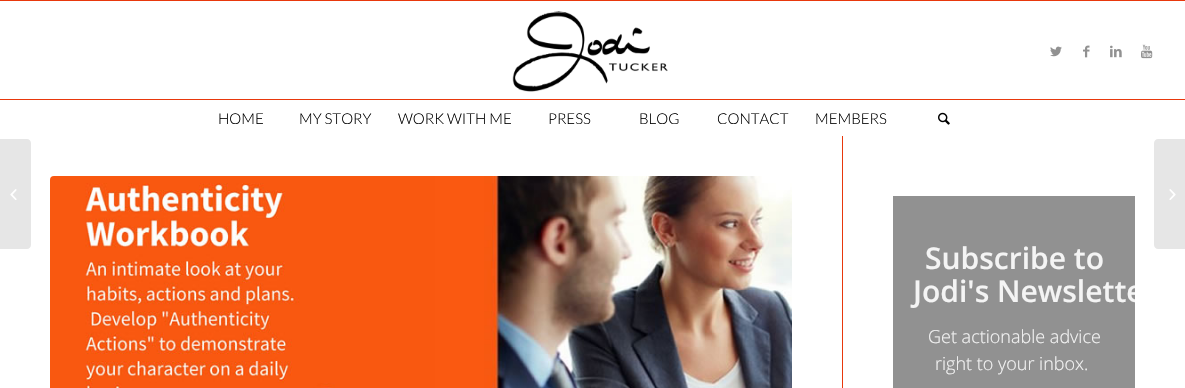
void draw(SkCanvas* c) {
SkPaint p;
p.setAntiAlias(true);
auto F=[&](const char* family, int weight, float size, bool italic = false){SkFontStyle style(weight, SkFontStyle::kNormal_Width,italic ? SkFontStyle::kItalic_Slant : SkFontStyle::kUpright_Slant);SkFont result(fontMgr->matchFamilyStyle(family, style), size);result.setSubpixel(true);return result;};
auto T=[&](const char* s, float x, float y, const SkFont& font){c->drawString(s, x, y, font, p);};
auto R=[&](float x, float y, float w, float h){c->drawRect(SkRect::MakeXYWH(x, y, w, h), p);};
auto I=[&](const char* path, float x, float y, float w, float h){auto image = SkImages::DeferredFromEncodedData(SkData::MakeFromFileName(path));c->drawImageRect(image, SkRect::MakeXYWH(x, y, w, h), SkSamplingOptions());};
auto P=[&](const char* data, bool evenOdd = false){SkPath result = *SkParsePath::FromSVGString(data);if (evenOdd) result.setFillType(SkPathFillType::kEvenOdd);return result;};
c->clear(0xffffffff);
p.setColor(0xffe8380c);
R(0,0,1185,1);
R(0,99,1185,1);
I("1.png",512,11,156,81);
I("2.png",1050,46,12,11);
I("3.png",1083,45,7,13);
I("4.png",1110,45,12,13);
I("5.png",1141,44,12,15);
auto f1 = F("Lato",300,15);
p.setColor(0xff000000);
T("HOME",218,124,f1);
T("MY STORY",299,124,f1);
T("WORK WITH ME",398,124,f1);
T("PRESS",548,124,f1);
T("BLOG",639,124,f1);
T("CONTACT",717,124,f1);
T("MEMBERS",815,124,f1);
I("6.png",938,112,12,13);
p.setColor(0xffe6e6e6);
c->drawPath(P("M0 139h27c2 0 4 2 4 4v102c0 2-2 4-4 4h-27z"),p);
I("7.png",10,189,7,11);
c->drawPath(P("M1158 139h27v110h-27c-2 0-4-2-4-4v-102c0-2 2-4 4-4z"),p);
I("8.png",1169,189,7,11);
p.setColor(0xffe8380c);
R(842,136,1,252);
I("9.png",50,176,742,212);
p.setColor(0xff919191);
R(893,196,242,192);
auto f2 = F("Open Sans",600,30);
p.setColor(0xfff4f4f4);
T("Subscribe to",925,269,f2);
c->save();
c->clipRect(SkRect::MakeXYWH(843,126,292,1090));
T("Jodi's Newslette",913,302,f2);
c->restore();
auto f3 = F("Open Sans",300,18);
T("Get actionable advice",928,343,f3);
T("right to your inbox.",935,370,f3);
}
